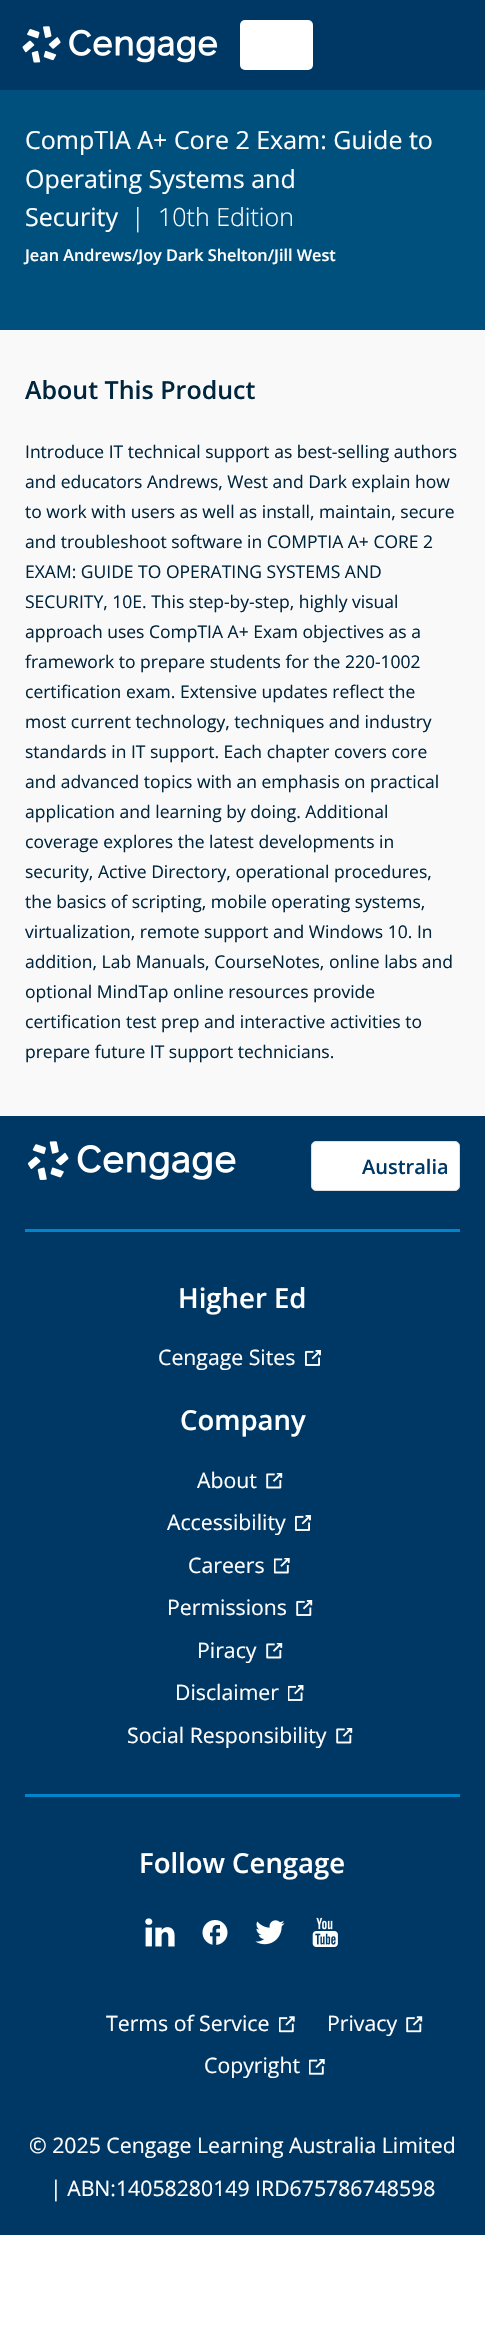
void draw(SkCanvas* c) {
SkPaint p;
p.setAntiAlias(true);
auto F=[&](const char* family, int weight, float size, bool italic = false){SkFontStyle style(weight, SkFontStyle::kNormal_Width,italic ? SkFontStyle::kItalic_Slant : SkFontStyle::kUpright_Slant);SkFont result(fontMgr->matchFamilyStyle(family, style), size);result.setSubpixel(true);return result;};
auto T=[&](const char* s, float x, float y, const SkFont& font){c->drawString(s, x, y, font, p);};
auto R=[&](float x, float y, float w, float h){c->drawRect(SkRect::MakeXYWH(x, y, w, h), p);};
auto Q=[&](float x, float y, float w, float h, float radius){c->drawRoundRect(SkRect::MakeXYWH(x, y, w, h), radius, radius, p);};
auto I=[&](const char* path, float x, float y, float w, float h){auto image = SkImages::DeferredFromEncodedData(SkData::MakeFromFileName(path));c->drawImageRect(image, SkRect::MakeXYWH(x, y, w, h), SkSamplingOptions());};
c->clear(0xffffffff);
p.setColor(0xff003865);
R(0,0,485,90);
I("1.png",22,26,196,37);
p.setColor(0xffffffff);
Q(240,20,73,50,5);
p.setColor(0xff00507e);
R(0,90,485,240);
auto f1 = F("Open Sans",400,25);
p.setColor(0xffffffff);
T("CompTIA A+ Core 2 Exam: Guide to",25,149,f1);
T("Operating Systems and",25,188,f1);
T("Security",25,226,f1);
auto f2 = F("Open Sans",300,25);
T("|",131,226,f2);
T("10th Edition",158,226,f2);
auto f3 = F("Open Sans",600,16.25);
T("Jean Andrews/Joy Dark Shelton/Jill West",25,261,f3);
p.setColor(0xfff9f9f9);
R(0,330,485,786);
auto f4 = F("Open Sans",600,25);
p.setColor(0xff00263e);
T("About This Product",25,399,f4);
auto f5 = F("Open Sans",400,17.5);
T("Introduce IT technical support as best-selling authors",25,458,f5);
T("and educators Andrews, West and Dark explain how",25,488,f5);
T("to work with users as well as install, maintain, secure",25,518,f5);
T("and troubleshoot software in COMPTIA A+ CORE 2",25,548,f5);
T("EXAM: GUIDE TO OPERATING SYSTEMS AND",25,578,f5);
T("SECURITY, 10E. This step-by-step, highly visual",25,608,f5);
T("approach uses CompTIA A+ Exam objectives as a",25,638,f5);
T("framework to prepare students for the 220-1002",25,668,f5);
T("certification exam. Extensive updates reflect the",25,698,f5);
T("most current technology, techniques and industry",25,728,f5);
T("standards in IT support. Each chapter covers core",25,758,f5);
T("and advanced topics with an emphasis on practical",25,788,f5);
T("application and learning by doing. Additional",25,818,f5);
T("coverage explores the latest developments in",25,848,f5);
T("security, Active Directory, operational procedures,",25,878,f5);
T("the basics of scripting, mobile operating systems,",25,908,f5);
T("virtualization, remote support and Windows 10. In",25,938,f5);
T("addition, Lab Manuals, CourseNotes, online labs and",25,968,f5);
T("optional MindTap online resources provide",25,998,f5);
T("certification test prep and interactive activities to",25,1028,f5);
T("prepare future IT support technicians.",25,1058,f5);
p.setColor(0xff003865);
R(0,1116,485,1119);
p.setColor(0xff0085ca);
R(25,1229,435,3);
I("2.png",27,1141,209,39);
p.setColor(0xffffffff);
c->drawRoundRect(SkRect::MakeXYWH(311.5,1141.5,148,49),4.5,4.5,p);
p.setStroke(true);
p.setStrokeWidth(1);
p.setColor(0xffdedede);
c->drawRoundRect(SkRect::MakeXYWH(311.5,1141.5,148,49),4.5,4.5,p);
auto f6 = F("Open Sans",600,20);
p.setStroke(false);
p.setColor(0xff003865);
T("Australia",362,1174,f6);
p.setColor(0xff0085ca);
R(25,1794,435,3);
auto f7 = F("Open Sans",600,27.5);
p.setColor(0xffffffff);
T("Higher Ed",178,1308,f7);
auto f8 = F("Open Sans",400,21.25);
T("Cengage Sites",158,1365,f8);
I("3.png",305,1350,16,16);
T("Company",180,1430,f7);
T("About",197,1488,f8);
I("4.png",266,1473,17,16);
T("Accessibility",167,1530,f8);
I("3.png",295,1515,16,16);
T("Careers",188,1573,f8);
I("5.png",274,1558,16,16);
T("Permissions",167,1615,f8);
I("6.png",296,1600,17,16);
T("Piracy",197,1658,f8);
I("4.png",266,1643,17,16);
T("Disclaimer",175,1700,f8);
I("7.png",288,1685,16,16);
T("Social Responsibility",127,1743,f8);
I("4.png",336,1728,17,16);
T("Follow Cengage",139,1873,f7);
I("8.png",145,1918,30,29);
I("9.png",202,1920,26,25);
I("10.png",255,1920,30,25);
I("11.png",312,1917,26,30);
T("Terms of Service",106,2031,f8);
I("12.png",279,2016,16,17);
T("Privacy",327,2031,f8);
I("13.png",406,2016,17,17);
T("Copyright",204,2073,f8);
I("14.png",309,2059,16,16);
T("© 2025 Cengage Learning Australia Limited",29,2153,f8);
T("| ABN:14058280149 IRD675786748598",50,2196,f8);
}
